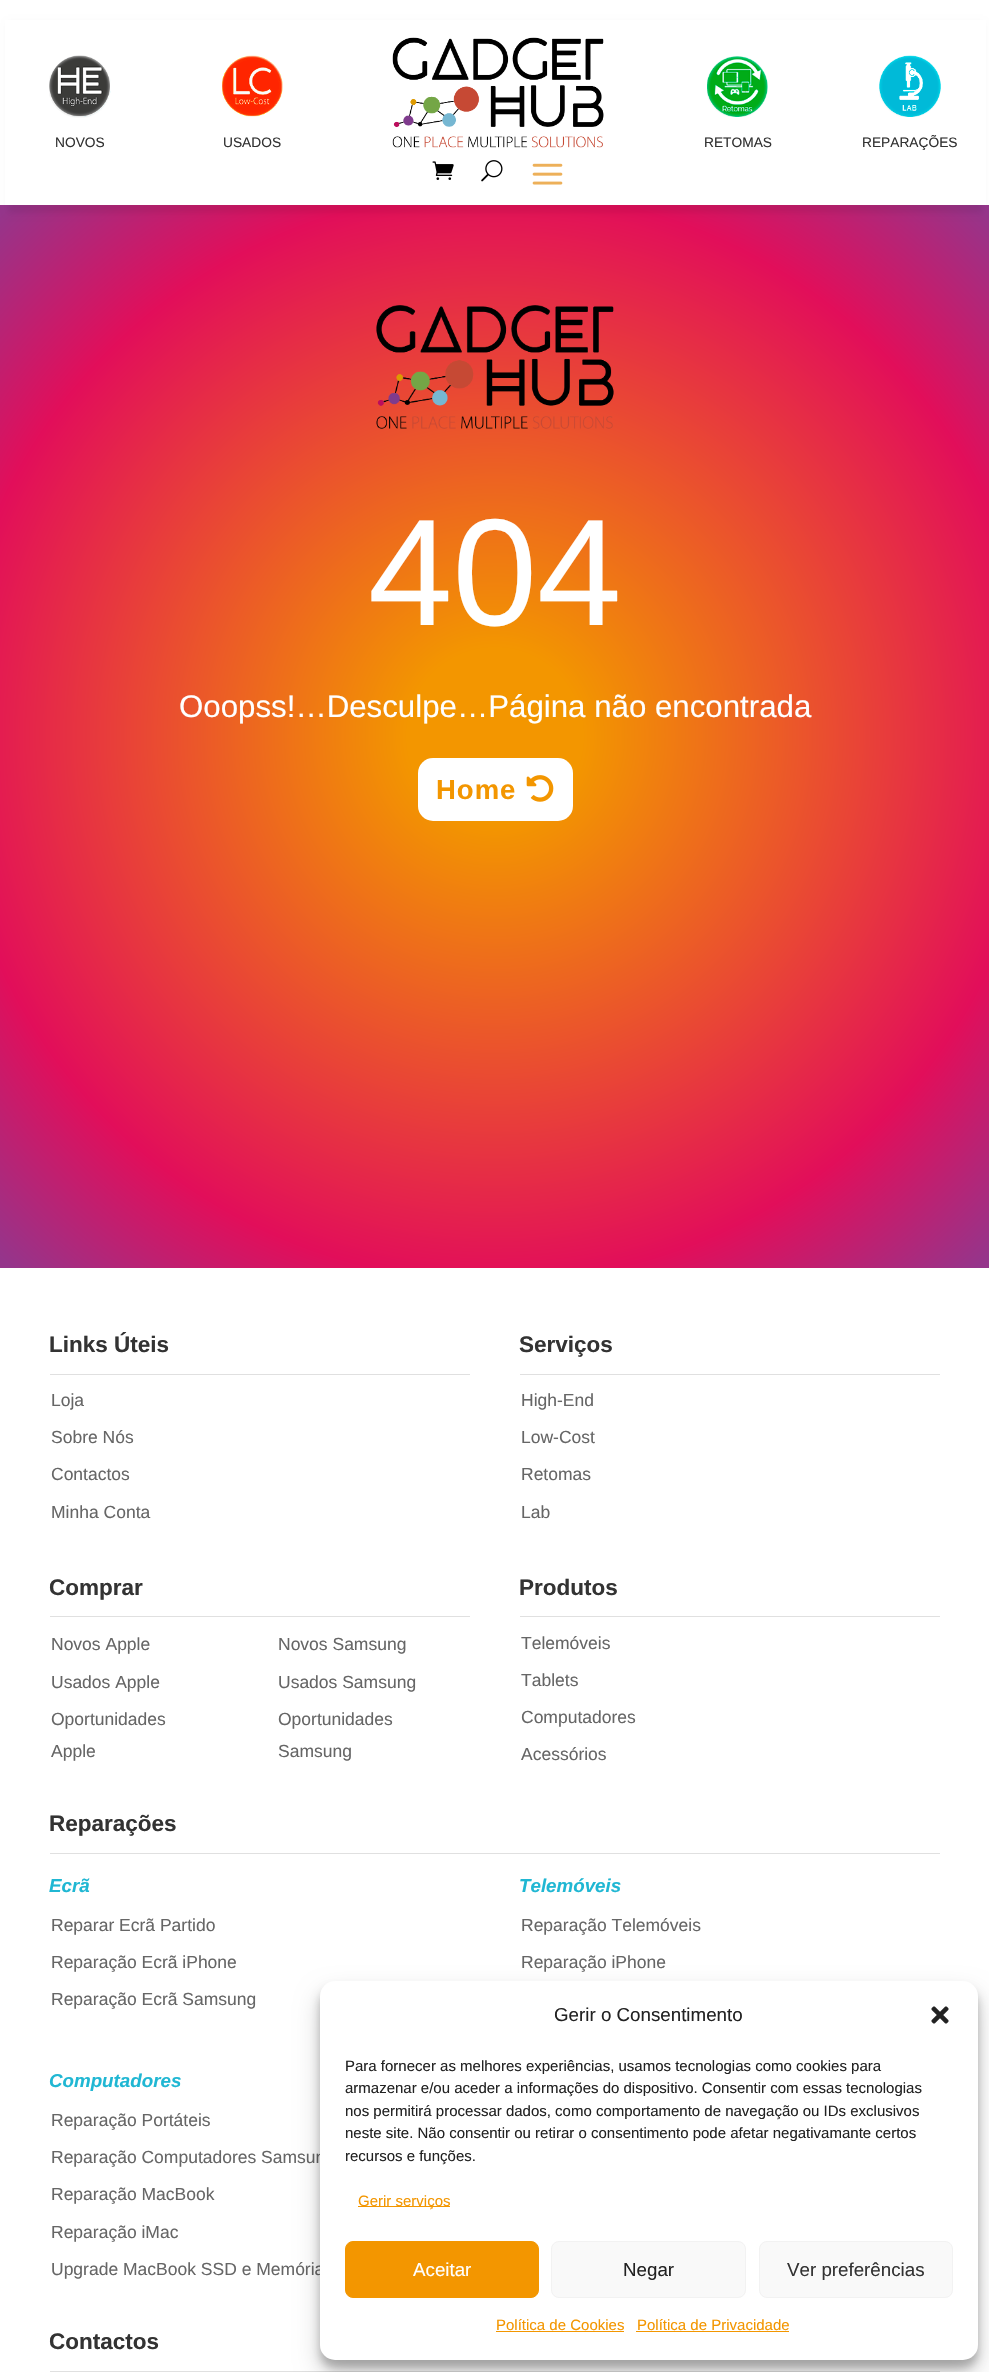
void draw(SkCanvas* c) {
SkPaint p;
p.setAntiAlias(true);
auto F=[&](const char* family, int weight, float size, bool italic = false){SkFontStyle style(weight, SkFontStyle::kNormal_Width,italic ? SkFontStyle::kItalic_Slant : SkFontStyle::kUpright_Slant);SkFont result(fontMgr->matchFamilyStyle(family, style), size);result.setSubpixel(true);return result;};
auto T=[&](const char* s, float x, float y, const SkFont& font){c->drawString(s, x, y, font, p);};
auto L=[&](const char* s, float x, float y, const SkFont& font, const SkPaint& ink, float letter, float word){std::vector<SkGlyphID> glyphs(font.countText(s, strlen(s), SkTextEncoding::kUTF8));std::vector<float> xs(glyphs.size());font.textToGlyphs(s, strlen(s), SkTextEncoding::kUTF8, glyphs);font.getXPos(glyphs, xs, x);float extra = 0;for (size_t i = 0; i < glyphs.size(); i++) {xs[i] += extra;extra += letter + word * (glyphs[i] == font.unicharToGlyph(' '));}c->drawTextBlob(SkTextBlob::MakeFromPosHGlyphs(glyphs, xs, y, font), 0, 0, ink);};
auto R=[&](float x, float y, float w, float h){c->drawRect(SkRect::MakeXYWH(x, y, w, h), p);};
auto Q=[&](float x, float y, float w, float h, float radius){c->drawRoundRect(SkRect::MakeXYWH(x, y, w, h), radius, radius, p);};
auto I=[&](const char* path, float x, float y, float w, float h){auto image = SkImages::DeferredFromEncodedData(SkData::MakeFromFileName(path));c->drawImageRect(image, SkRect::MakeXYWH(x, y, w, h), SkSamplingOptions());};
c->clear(0xffffffff);
{
const SkColor colors[] = {0xfff39600,0xffe20e5a,0xff95358b};
const float stops[] = {.12,.75,.99};
p.setShader(SkGradientShader::MakeRadial({495,736}, 726, colors, stops, 3, SkTileMode::kClamp));
p.setAlpha(255);
}
R(0,205,989,1063);
p.setShader(nullptr);
p.setColor(0x12000000);
p.setMaskFilter(SkMaskFilter::MakeBlur(kNormal_SkBlurStyle, 3));
c->drawRect(SkRect::MakeXYWH(8,23,975,190),p);
p.setMaskFilter(nullptr);
p.setColor(0xffffffff);
R(5,20,981,185);
I("1.png",49,55,62,63);
auto f1 = F("Liberation Sans",400,13.75);
p.setColor(0xff333333);
T("NOVOS",55,147,f1);
I("2.png",222,55,61,62);
T("USADOS",223,147,f1);
I("3.png",392,37,212,111);
I("4.png",432,161,22,19);
I("5.png",481,160,22,22);
I("6.png",532,163,31,22);
I("7.png",707,56,61,61);
T("RETOMAS",704,147,f1);
I("8.png",879,55,62,62);
T("REPARAÇÕES",862,147,f1);
I("9.png",376,305,238,124);
auto f2 = F("Liberation Sans",400,152);
p.setColor(0xffffffff);
T("404",368,625,f2);
auto f3 = F("Liberation Sans",400,31.25);
T("Ooopss!…Desculpe…Página não encontrada",179,717,f3);
Q(418,758,155,63,15);
auto f4 = F("Liberation Sans",700,27.5);
p.setColor(0xfff39600);
L("Home",436,799,f4,p,1,0);
I("10.png",526,775,28,27);
auto f5 = F("Liberation Sans",700,22.5);
p.setColor(0xff333333);
T("Links Úteis",49,1352,f5);
p.setColor(0xffe0e0e0);
R(50,1374,420,1);
auto f6 = F("Liberation Sans",400,17.5);
p.setColor(0xff666666);
T("Loja",51,1406,f6);
T("Sobre Nós",51,1443,f6);
T("Contactos",51,1480,f6);
T("Minha Conta",51,1518,f6);
p.setColor(0xff333333);
T("Serviços",519,1352,f5);
p.setColor(0xffe0e0e0);
R(520,1374,420,1);
p.setColor(0xff666666);
T("High-End",521,1406,f6);
T("Low-Cost",521,1443,f6);
T("Retomas",521,1480,f6);
T("Lab",521,1518,f6);
p.setColor(0xff333333);
T("Comprar",49,1595,f5);
p.setColor(0xffe0e0e0);
R(50,1616,420,1);
p.setColor(0xff666666);
T("Novos Apple",51,1650,f6);
T("Usados Apple",51,1688,f6);
T("Oportunidades",51,1725,f6);
T("Apple",51,1757,f6);
T("Novos Samsung",278,1650,f6);
T("Usados Samsung",278,1688,f6);
T("Oportunidades",278,1725,f6);
T("Samsung",278,1757,f6);
p.setColor(0xff333333);
T("Produtos",519,1595,f5);
p.setColor(0xffe0e0e0);
R(520,1616,420,1);
p.setColor(0xff666666);
T("Telemóveis",521,1649,f6);
T("Tablets",521,1686,f6);
T("Computadores",521,1723,f6);
T("Acessórios",521,1760,f6);
p.setColor(0xff333333);
T("Reparações",49,1831,f5);
p.setColor(0xffe0e0e0);
R(50,1853,890,1);
auto f7 = F("Liberation Sans",700,18.75,true);
p.setColor(0xff20b7d3);
T("Ecrã",49,1892,f7);
p.setColor(0xff666666);
T("Reparar Ecrã Partido",51,1931,f6);
T("Reparação Ecrã iPhone",51,1968,f6);
T("Reparação Ecrã Samsung",51,2005,f6);
p.setColor(0xff20b7d3);
T("Telemóveis",519,1892,f7);
p.setColor(0xff666666);
T("Reparação Telemóveis",521,1931,f6);
T("Reparação iPhone",521,1968,f6);
p.setColor(0xff20b7d3);
T("Computadores",49,2087,f7);
p.setColor(0xff666666);
T("Reparação Portáteis",51,2126,f6);
T("Reparação Computadores Samsun",51,2163,f6);
T("Reparação MacBook",51,2200,f6);
T("Reparação iMac",51,2238,f6);
T("Upgrade MacBook SSD e Memória",51,2275,f6);
p.setColor(0xff333333);
T("Contactos",49,2349,f5);
p.setColor(0xffe0e0e0);
R(50,2371,890,1);
p.setColor(0x3b000000);
p.setMaskFilter(SkMaskFilter::MakeBlur(kNormal_SkBlurStyle, 4));
c->drawRoundRect(SkRect::MakeXYWH(320,1989,658,379),15,15,p);
p.setMaskFilter(nullptr);
p.setColor(0x30000000);
p.setMaskFilter(SkMaskFilter::MakeBlur(kNormal_SkBlurStyle, 12.5));
c->drawRoundRect(SkRect::MakeXYWH(320,1994,658,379),15,15,p);
p.setMaskFilter(nullptr);
p.setColor(0xffffffff);
Q(320,1981,658,379,15);
auto f8 = F("Liberation Sans",400,18.75);
p.setColor(0xff222222);
T("Gerir o Consentimento",554,2021,f8);
I("11.png",931,2006,18,18);
auto f9 = F("Liberation Sans",400,15);
T("Para fornecer as melhores experiências, usamos tecnologias como cookies para",345,2071,f9);
T("armazenar e/ou aceder a informações do dispositivo. Consentir com essas tecnologias",345,2093,f9);
T("nos permitirá processar dados, como comportamento de navegação ou IDs exclusivos",345,2116,f9);
T("neste site. Não consentir ou retirar o consentimento pode afetar negativamante certos",345,2138,f9);
T("recursos e funções.",345,2161,f9);
p.setColor(0xfff39600);
R(358,2206,92,1);
T("Gerir serviços",358,2206,f9);
c->drawRoundRect(SkRect::MakeXYWH(345.5,2241.5,193,56),7.5,7.5,p);
p.setStroke(true);
p.setStrokeWidth(1);
c->drawRoundRect(SkRect::MakeXYWH(345.5,2241.5,193,56),7.5,7.5,p);
p.setStroke(false);
p.setColor(0xffffffff);
T("Aceitar",413,2276,f8);
p.setColor(0xfff9f9f9);
c->drawRoundRect(SkRect::MakeXYWH(551.5,2241.5,194,56),7.5,7.5,p);
p.setStroke(true);
p.setColor(0xfff2f2f2);
c->drawRoundRect(SkRect::MakeXYWH(551.5,2241.5,194,56),7.5,7.5,p);
p.setStroke(false);
p.setColor(0xff222222);
T("Negar",623,2276,f8);
p.setColor(0xfff9f9f9);
c->drawRoundRect(SkRect::MakeXYWH(759.5,2241.5,193,56),7.5,7.5,p);
p.setStroke(true);
p.setColor(0xfff2f2f2);
c->drawRoundRect(SkRect::MakeXYWH(759.5,2241.5,193,56),7.5,7.5,p);
p.setStroke(false);
p.setColor(0xff333333);
T("Ver preferências",787,2276,f8);
p.setColor(0xfff39600);
T("Política de Cookies",496,2330,f9);
R(496,2331,128,1);
T("Política de Privacidade",637,2330,f9);
R(636,2331,153,1);
}
